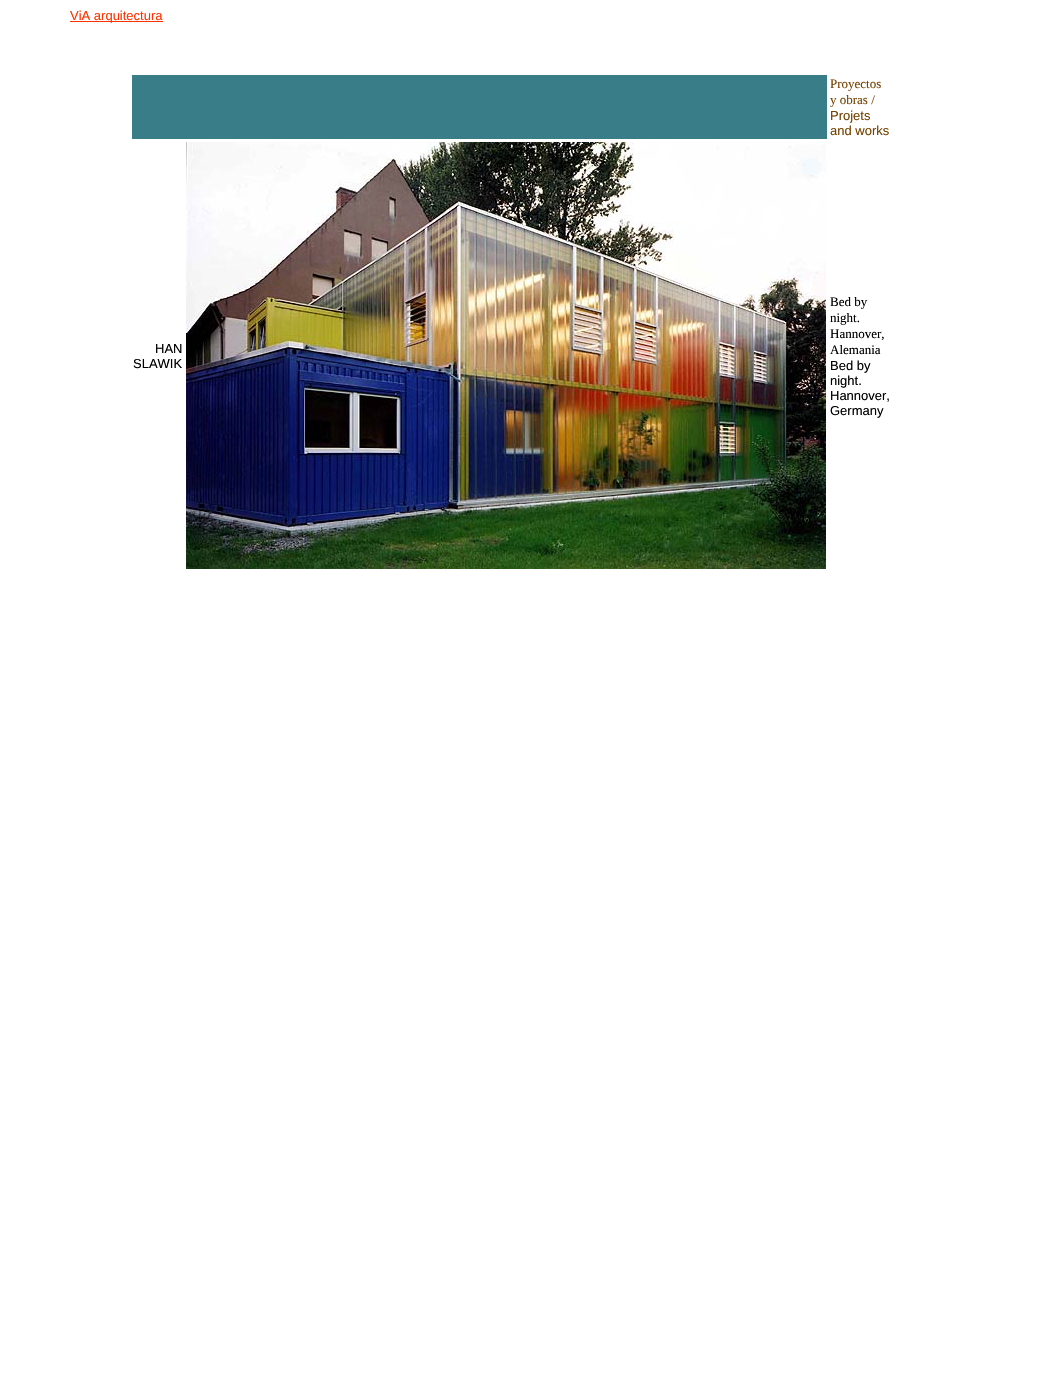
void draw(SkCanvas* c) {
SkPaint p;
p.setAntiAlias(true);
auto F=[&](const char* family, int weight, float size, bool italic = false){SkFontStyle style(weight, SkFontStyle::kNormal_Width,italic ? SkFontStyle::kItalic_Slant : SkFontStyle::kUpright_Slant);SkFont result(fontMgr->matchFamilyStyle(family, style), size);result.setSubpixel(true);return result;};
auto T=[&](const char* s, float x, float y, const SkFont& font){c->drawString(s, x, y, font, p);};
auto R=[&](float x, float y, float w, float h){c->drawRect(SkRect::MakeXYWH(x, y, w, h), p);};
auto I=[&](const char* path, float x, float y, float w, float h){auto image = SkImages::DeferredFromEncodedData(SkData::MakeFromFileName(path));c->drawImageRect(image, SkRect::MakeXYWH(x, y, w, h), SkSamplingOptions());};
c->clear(0xffffffff);
p.setColor(0xffff3300);
R(70,21,93,1);
auto f1 = F("Liberation Sans",400,13);
T("ViA arquitectura",70,20,f1);
p.setColor(0xff397d88);
R(132,75,695,64);
auto f2 = F("Liberation Serif",400,13);
p.setColor(0xff754200);
T("Proyectos",830,88,f2);
T("y obras /",830,104,f2);
T("Projets",830,120,f1);
T("and works",830,135,f1);
p.setColor(0xff000000);
T("HAN",155,353,f1);
T("SLAWIK",133,368,f1);
I("1.png",186,142,640,427);
T("Bed by",830,306,f2);
T("night.",830,322,f2);
T("Hannover,",830,338,f2);
T("Alemania",830,354,f2);
T("Bed by",830,370,f1);
T("night.",830,385,f1);
T("Hannover,",830,400,f1);
T("Germany",830,415,f1);
}
